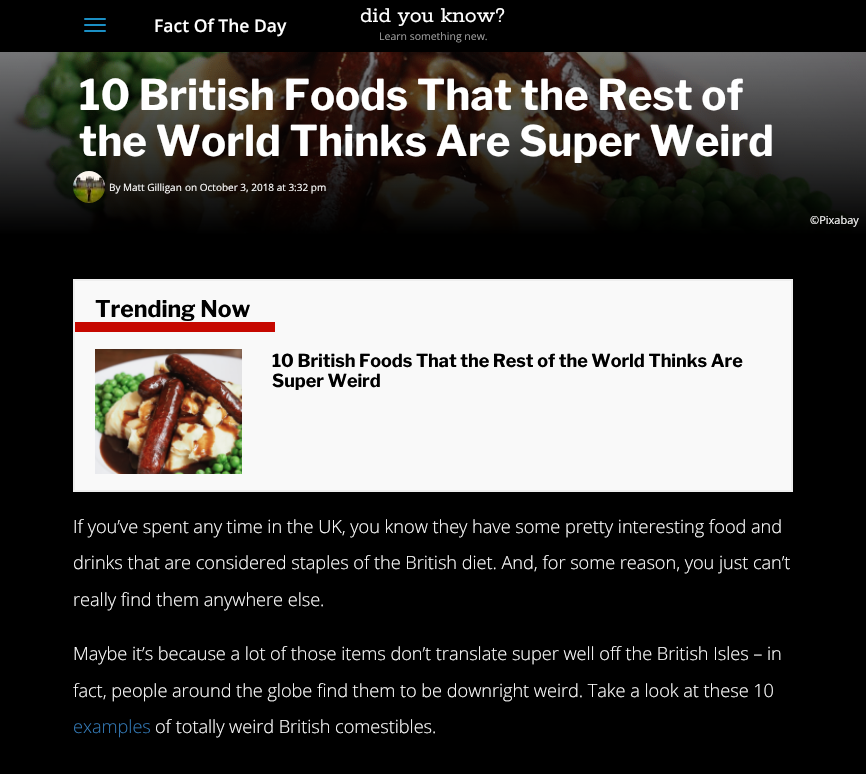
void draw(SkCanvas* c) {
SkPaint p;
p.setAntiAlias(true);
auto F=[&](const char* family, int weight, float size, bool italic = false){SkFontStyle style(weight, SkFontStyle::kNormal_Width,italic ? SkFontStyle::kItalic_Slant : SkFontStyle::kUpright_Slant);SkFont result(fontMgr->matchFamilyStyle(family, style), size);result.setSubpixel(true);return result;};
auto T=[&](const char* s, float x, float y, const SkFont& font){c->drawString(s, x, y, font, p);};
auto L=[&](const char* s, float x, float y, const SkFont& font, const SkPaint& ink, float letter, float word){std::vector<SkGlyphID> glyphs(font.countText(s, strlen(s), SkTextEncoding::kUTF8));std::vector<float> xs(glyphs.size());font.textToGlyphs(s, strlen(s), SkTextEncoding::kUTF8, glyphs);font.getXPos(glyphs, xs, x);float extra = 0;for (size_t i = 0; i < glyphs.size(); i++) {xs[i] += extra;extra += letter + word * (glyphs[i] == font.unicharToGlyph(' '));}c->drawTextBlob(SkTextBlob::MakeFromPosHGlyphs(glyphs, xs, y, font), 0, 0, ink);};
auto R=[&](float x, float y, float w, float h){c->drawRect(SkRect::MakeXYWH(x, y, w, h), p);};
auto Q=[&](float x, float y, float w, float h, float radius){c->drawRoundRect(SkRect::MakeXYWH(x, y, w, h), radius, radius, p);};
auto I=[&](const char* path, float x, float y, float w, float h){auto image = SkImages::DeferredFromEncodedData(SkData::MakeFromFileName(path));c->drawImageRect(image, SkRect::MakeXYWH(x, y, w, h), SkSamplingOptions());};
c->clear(0xff000000);
p.setColor(0xff1b8fc4);
Q(84,18,22,2,1);
Q(84,24,22,2,1);
Q(84,30,22,2,1);
auto f1 = F("Open Sans",600,17.5);
p.setColor(0xffffffff);
T("Fact Of The Day",154,32,f1);
auto f2 = F("Rokkitt",400,23.75);
T("did you know?",360,22,f2);
auto f3 = F("Open Sans",400,10.5);
p.setColor(0xff9d9d9d);
T("Learn something new.",379,40,f3);
I("1.png",0,52,866,183);
auto f4 = F("Libre Franklin",700,42);
p.setColor(0xffffffff);
T("10 British Foods That the Rest of",79,110,f4);
T("the World Thinks Are Super Weird",79,156,f4);
I("2.png",73,171,32,32);
auto f5 = F("Open Sans",400,10);
T("By",109,191,f5);
T("Matt Gilligan",123,191,f5);
T("on October 3, 2018 at 3:32 pm",185,191,f5);
auto f6 = F("Open Sans",400,11);
T("©Pixabay",810,224,f6);
p.setColor(0xfff9f9f9);
c->drawRect(SkRect::MakeXYWH(74,280,718,211),p);
p.setStroke(true);
p.setStrokeWidth(2);
p.setColor(0xffeeeeee);
c->drawRect(SkRect::MakeXYWH(74,280,718,211),p);
auto f7 = F("Libre Franklin",700,23);
p.setStroke(false);
p.setColor(0xff000000);
L("Trending Now",95,317,f7,p,-.05,0);
p.setColor(0xffc60800);
R(75,322,200,10);
I("3.png",95,349,147,125);
auto f8 = F("Libre Franklin",700,18);
p.setColor(0xff000000);
L("10 British Foods That the Rest of the World Thinks Are",272,367,f8,p,-.05,0);
L("Super Weird",272,387,f8,p,-.05,0);
auto f9 = F("Open Sans",300,18.2);
p.setColor(0xffffffff);
L("If you’ve spent any time in the UK, you know they have some pretty interesting food and",73,533,f9,p,-.05,0);
L("drinks that are considered staples of the British diet. And, for some reason, you just can’t",73,569,f9,p,-.05,0);
L("really find them anywhere else.",73,606,f9,p,-.05,0);
L("Maybe it’s because a lot of those items don’t translate super well off the British Isles – in",73,660,f9,p,-.05,0);
L("fact, people around the globe find them to be downright weird. Take a look at these 10",73,697,f9,p,-.05,0);
p.setColor(0xff337ab7);
L("examples",73,733,f9,p,-.05,0);
p.setColor(0xffffffff);
L("of totally weird British comestibles.",155,733,f9,p,-.05,0);
}
